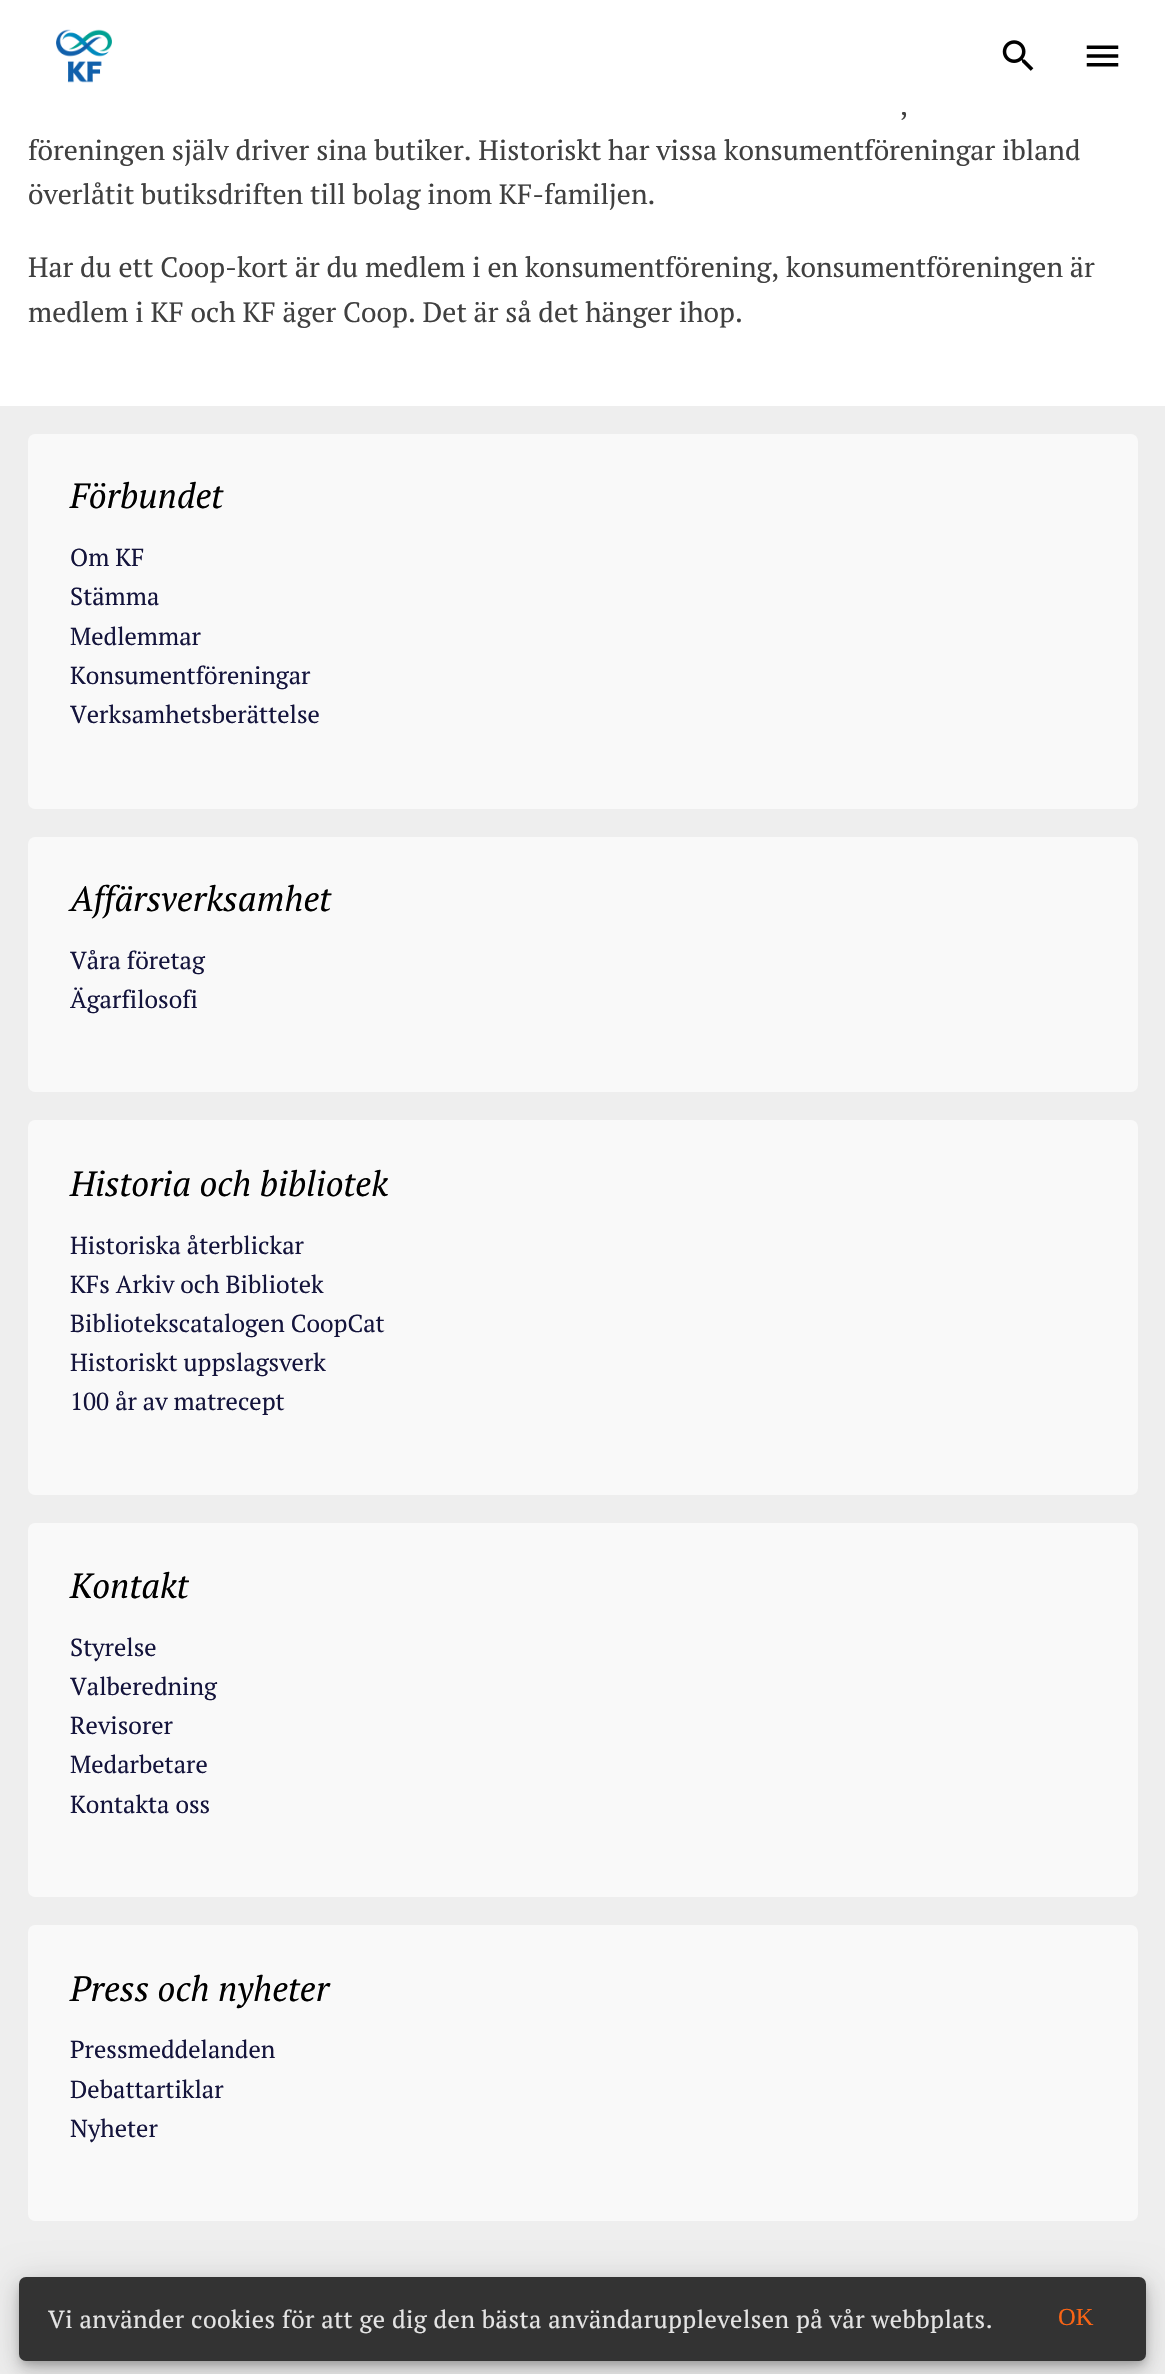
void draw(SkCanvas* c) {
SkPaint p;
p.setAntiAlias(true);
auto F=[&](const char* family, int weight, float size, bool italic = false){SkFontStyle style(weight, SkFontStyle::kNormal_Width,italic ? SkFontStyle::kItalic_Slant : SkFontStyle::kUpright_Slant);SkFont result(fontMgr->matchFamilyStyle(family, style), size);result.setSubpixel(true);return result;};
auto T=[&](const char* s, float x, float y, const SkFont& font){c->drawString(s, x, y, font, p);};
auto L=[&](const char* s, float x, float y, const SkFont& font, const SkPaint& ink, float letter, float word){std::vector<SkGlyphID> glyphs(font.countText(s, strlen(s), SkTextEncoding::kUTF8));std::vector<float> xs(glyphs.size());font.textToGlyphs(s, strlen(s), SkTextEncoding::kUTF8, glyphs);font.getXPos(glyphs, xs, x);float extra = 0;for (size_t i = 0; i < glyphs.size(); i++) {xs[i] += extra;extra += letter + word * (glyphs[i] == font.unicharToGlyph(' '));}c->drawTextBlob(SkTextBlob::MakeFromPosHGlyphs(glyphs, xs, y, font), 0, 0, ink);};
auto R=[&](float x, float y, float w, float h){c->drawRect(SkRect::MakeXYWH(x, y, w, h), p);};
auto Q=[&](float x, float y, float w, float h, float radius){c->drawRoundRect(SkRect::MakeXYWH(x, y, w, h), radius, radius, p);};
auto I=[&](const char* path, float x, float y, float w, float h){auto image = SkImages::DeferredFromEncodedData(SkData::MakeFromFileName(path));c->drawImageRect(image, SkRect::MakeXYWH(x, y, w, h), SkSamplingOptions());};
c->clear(0xffffffff);
auto f1 = F("PT Serif",400,28);
p.setColor(0xff404040);
T(",",900,115,f1);
p.setColor(0xffffffff);
R(902,111,3,1);
I("1.png",56,29,56,54);
I("2.png",1002,40,32,31);
I("3.png",1086,45,33,22);
p.setColor(0xff404040);
T("föreningen själv driver sina butiker. Historiskt har vissa konsumentföreningar ibland",28,160,f1);
T("överlåtit butiksdriften till bolag inom KF-familjen.",28,204,f1);
T("Har du ett Coop-kort är du medlem i en konsumentförening, konsumentföreningen är",28,277,f1);
T("medlem i KF och KF äger Coop. Det är så det hänger ihop.",28,322,f1);
p.setColor(0xffeeeeee);
R(0,406,1165,1968);
p.setColor(0xfff9f9f9);
Q(28,434,1110,375,7);
auto f2 = F("PT Serif",400,35,true);
p.setColor(0xff000000);
T("Förbundet",70,508,f2);
auto f3 = F("PT Serif",400,24.5);
p.setColor(0xff14143c);
T("Om KF",70,566,f3);
T("Stämma",70,605,f3);
T("Medlemmar",70,645,f3);
T("Konsumentföreningar",70,684,f3);
T("Verksamhetsberättelse",70,723,f3);
p.setColor(0xfff9f9f9);
Q(28,837,1110,255,7);
p.setColor(0xff000000);
T("Affärsverksamhet",70,911,f2);
p.setColor(0xff14143c);
T("Våra företag",70,969,f3);
T("Ägarfilosofi",70,1008,f3);
p.setColor(0xfff9f9f9);
Q(28,1120,1110,375,7);
p.setColor(0xff000000);
T("Historia och bibliotek",70,1196,f2);
p.setColor(0xff14143c);
T("Historiska återblickar",70,1254,f3);
T("KFs Arkiv och Bibliotek",70,1293,f3);
T("Bibliotekscatalogen CoopCat",70,1332,f3);
T("Historiskt uppslagsverk",70,1371,f3);
T("100 år av matrecept",70,1410,f3);
p.setColor(0xfff9f9f9);
Q(28,1523,1110,374,7);
p.setColor(0xff000000);
T("Kontakt",70,1598,f2);
p.setColor(0xff14143c);
T("Styrelse",70,1656,f3);
T("Valberedning",70,1695,f3);
T("Revisorer",70,1734,f3);
T("Medarbetare",70,1773,f3);
T("Kontakta oss",70,1813,f3);
p.setColor(0xfff9f9f9);
Q(28,1925,1110,296,7);
p.setColor(0xff000000);
T("Press och nyheter",70,2001,f2);
p.setColor(0xff14143c);
T("Pressmeddelanden",70,2058,f3);
T("Debattartiklar",70,2098,f3);
T("Nyheter",70,2137,f3);
p.setColor(0x1f000000);
p.setMaskFilter(SkMaskFilter::MakeBlur(kNormal_SkBlurStyle, 16));
c->drawRoundRect(SkRect::MakeXYWH(19,2279,1127,84),7,7,p);
p.setMaskFilter(nullptr);
p.setColor(0x24000000);
p.setMaskFilter(SkMaskFilter::MakeBlur(kNormal_SkBlurStyle, 9));
c->drawRoundRect(SkRect::MakeXYWH(19,2287,1127,84),7,7,p);
p.setMaskFilter(nullptr);
p.setColor(0x33000000);
p.setMaskFilter(SkMaskFilter::MakeBlur(kNormal_SkBlurStyle, 4.5));
c->drawRoundRect(SkRect::MakeXYWH(21,2284,1124,80),5,5,p);
p.setMaskFilter(nullptr);
p.setColor(0xff333333);
Q(19,2277,1127,84,7);
p.setColor(0xffe4e4e4);
L("Vi använder cookies för att ge dig den bästa användarupplevelsen på vår webbplats.",48,2328,f3,p,.45,0);
auto f4 = F("Liberation Serif",400,24.5);
p.setColor(0xfffa6414);
T("OK",1058,2325,f4);
}
